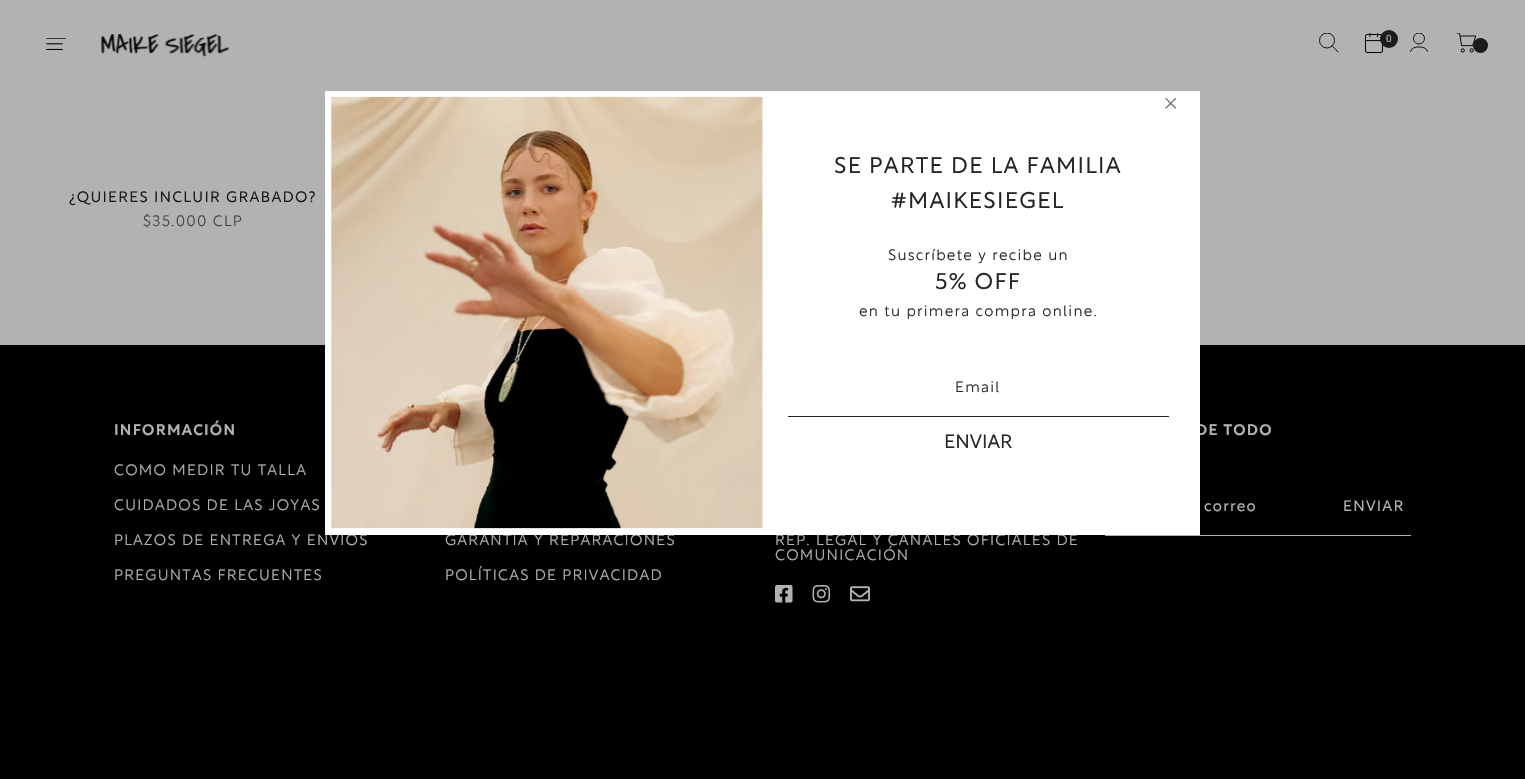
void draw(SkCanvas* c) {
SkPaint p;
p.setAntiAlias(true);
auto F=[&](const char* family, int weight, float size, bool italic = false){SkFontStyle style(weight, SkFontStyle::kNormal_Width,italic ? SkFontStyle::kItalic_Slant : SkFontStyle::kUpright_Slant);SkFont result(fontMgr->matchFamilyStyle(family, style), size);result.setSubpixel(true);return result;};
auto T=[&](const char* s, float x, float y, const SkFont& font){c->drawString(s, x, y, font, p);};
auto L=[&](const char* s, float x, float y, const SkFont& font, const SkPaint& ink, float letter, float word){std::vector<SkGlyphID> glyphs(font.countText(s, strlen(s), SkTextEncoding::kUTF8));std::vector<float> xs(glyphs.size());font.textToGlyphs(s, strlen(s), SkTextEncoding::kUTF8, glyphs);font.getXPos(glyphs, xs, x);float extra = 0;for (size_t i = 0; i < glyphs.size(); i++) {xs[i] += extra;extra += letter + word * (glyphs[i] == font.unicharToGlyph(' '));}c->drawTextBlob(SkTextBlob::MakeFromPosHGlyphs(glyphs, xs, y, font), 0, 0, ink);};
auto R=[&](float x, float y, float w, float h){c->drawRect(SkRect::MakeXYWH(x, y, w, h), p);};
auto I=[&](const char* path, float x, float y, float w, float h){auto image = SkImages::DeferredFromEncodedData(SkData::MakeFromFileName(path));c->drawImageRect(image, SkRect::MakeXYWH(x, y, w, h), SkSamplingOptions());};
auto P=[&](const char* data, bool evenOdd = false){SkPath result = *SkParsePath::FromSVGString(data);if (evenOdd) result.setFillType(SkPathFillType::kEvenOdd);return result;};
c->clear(0xffffffff);
I("1.png",46,38,20,12);
I("2.png",101,34,129,23);
c->save();
c->clipRect(SkRect::MakeXYWH(1319,33,20,20));
p.setStroke(true);
p.setStrokeWidth(.9);
p.setColor(0xff000000);
c->drawCircle(1327,40.5,7.5,p);
c->restore();
p.setStrokeCap(SkPaint::kRound_Cap);
c->drawPath(P("M1338 52l-6-6.5"),p);
I("3.png",1364,33,19,20);
p.setStroke(false);
p.setColor(0xff262626);
c->drawCircle(1389,39,9,p);
auto f1 = F("Roboto",400,10);
p.setColor(0xffffffff);
L("0",1386,42,f1,p,1,0);
c->save();
c->clipRect(SkRect::MakeXYWH(1410,33,19,20));
p.setStroke(true);
p.setStrokeCap(SkPaint::kButt_Cap);
p.setColor(0xff000000);
c->drawCircle(1419,38.5,5.5,p);
c->restore();
p.setStrokeCap(SkPaint::kRound_Cap);
c->drawPath(P("M1410.5 51.5c.5-6.5 17-6 17 0"),p);
I("4.png",1456,33,20,20);
p.setStroke(false);
p.setColor(0xff262626);
c->drawCircle(1480.5,45.5,7.5,p);
auto f2 = F("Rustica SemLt",300,15);
L("¿QUIERES INCLUIR GRABADO?",69,202,f2,p,1.25,0);
auto f3 = F("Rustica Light",300,15);
p.setColor(0xff606060);
L("$35.000 CLP",143,226,f3,p,1.25,0);
p.setColor(0xff000000);
R(0,345,1525,434);
auto f4 = F("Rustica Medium",500,15);
p.setColor(0xffffffff);
L("INFORMACIÓN",114,435,f4,p,1.25,0);
L("COMO MEDIR TU TALLA",114,475,f3,p,1.25,0);
L("CUIDADOS DE LAS JOYAS",114,510,f3,p,1.25,0);
L("PLAZOS DE ENTREGA Y ENVÍOS",114,545,f3,p,1.25,0);
L("PREGUNTAS FRECUENTES",114,580,f3,p,1.25,0);
L("DE TODO",1196,435,f4,p,1.25,0);
R(1105,535,306,1);
L("correo",1204,511,f2,p,1.25,0);
L("ENVIAR",1343,511,f2,p,1.25,0);
L("GARANTÍA Y REPARACIONES",445,545,f3,p,1.25,0);
L("POLÍTICAS DE PRIVACIDAD",445,580,f3,p,1.25,0);
L("REP. LEGAL Y CANALES OFICIALES DE",775,545,f3,p,1.25,0);
L("COMUNICACIÓN",775,560,f3,p,1.25,0);
I("6.png",775,585,18,18);
I("7.png",812,585,19,18);
I("8.png",850,586,20,16);
p.setStroke(true);
p.setStrokeWidth(4575);
p.setStrokeCap(SkPaint::kButt_Cap);
p.setColor(0x4d000000);
c->drawRect(SkRect::MakeXYWH(-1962.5,-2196.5,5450,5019),p);
p.setStroke(false);
p.setColor(0xffffffff);
R(325,345,875,190);
I("5.png",331,96,433,433);
auto f5 = F("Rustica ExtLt",200,31);
p.setColor(0xff707070);
c->save();
c->rotate(45,1157,105);
L("+",1157,105,f5,p,1.25,0);
c->restore();
auto f6 = F("Rustica SemLt",300,22.5);
p.setColor(0xff262626);
L("SE PARTE DE LA FAMILIA",834,173,f6,p,1.25,0);
L("#MAIKESIEGEL",891,208,f6,p,1.25,0);
L("Suscríbete y recibe un",888,260,f3,p,1.25,0);
L("5% OFF",935,289,f6,p,1.25,0);
L("en tu primera compra online.",859,316,f3,p,1.25,0);
R(788,416,381,1);
L("Email",955,392,f3,p,1.25,0);
auto f7 = F("Rustica SemLt",300,19);
T("ENVIAR",944,448,f7);
}
